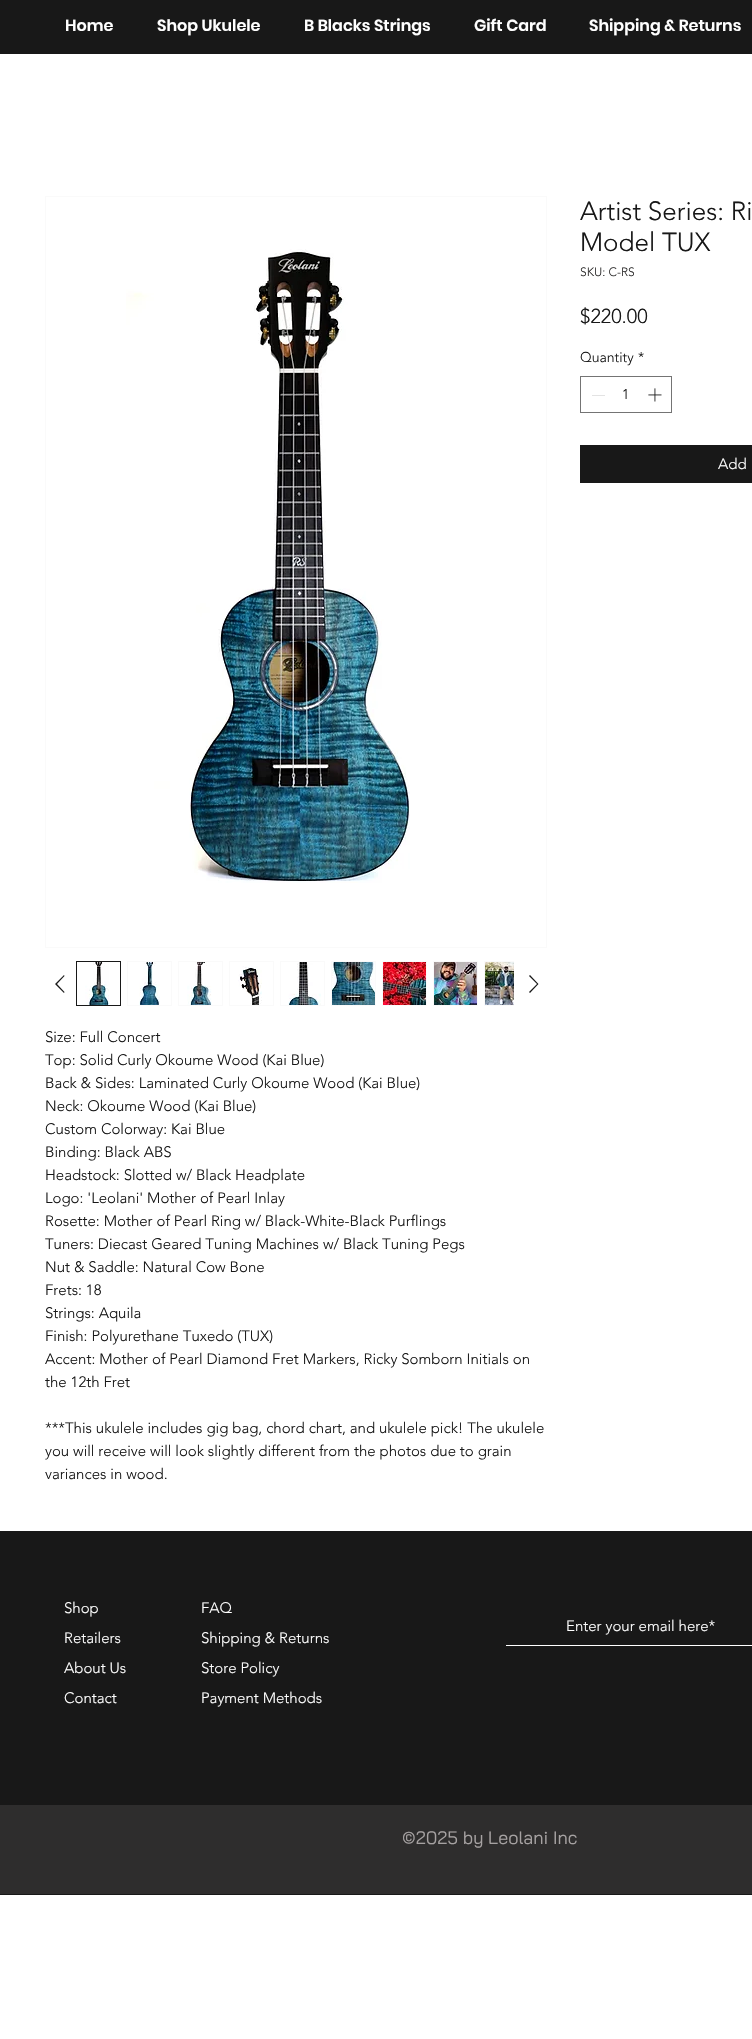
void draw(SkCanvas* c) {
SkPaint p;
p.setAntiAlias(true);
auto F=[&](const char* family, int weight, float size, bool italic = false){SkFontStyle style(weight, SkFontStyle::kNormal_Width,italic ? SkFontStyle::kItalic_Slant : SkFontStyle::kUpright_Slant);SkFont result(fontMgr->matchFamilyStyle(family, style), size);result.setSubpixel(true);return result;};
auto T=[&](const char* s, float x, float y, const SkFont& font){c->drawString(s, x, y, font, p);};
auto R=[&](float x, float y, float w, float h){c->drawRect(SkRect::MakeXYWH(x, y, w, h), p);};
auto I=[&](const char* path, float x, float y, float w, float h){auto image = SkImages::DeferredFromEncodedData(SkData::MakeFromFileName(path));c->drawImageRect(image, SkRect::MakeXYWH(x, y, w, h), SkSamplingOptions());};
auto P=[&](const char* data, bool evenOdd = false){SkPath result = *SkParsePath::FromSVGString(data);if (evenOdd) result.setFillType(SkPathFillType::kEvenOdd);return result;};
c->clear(0xffffffff);
p.setColor(0xff181818);
R(0,0,752,54);
auto f1 = F("Poppins",600,16);
p.setColor(0xffffffff);
T("Home",65,31,f1);
T("Shop Ukulele",157,31,f1);
T("B Blacks Strings",304,31,f1);
T("Gift Card",474,31,f1);
T("Shipping & Returns",589,31,f1);
auto f2 = F("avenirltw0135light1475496",300,26);
p.setColor(0xff181818);
T("Artist Series: Ri",580,220,f2);
T("Model TUX",580,251,f2);
auto f3 = F("avenirltw0135light1475496",300,12);
p.setColor(0xff2e2d2d);
T("SKU: C-RS",580,276,f3);
auto f4 = F("avenirltw0135light1475496",300,20);
p.setColor(0xff181818);
T("$220.00",580,323,f4);
auto f5 = F("avenirltw0135light1475496",300,14);
T("Quantity",580,362,f5);
T("*",638,362,f5);
p.setStroke(true);
p.setStrokeWidth(1);
p.setColor(0xff747474);
c->drawRect(SkRect::MakeXYWH(580.5,376.5,91,36),p);
p.setStroke(false);
p.setColor(0xffe3e3e3);
R(592,395,13,1);
p.setColor(0xff181818);
T("1",622,399,f5);
I("1.png",648,388,14,14);
R(580,445,172,38);
auto f6 = F("avenirltw0135light1475496",300,15);
p.setColor(0xffffffff);
T("Add",718,469,f6);
p.setStroke(true);
p.setColor(0xfffafafa);
c->drawRect(SkRect::MakeXYWH(45.5,196.5,501,751),p);
I("2.png",126,249,284,634);
p.setStroke(false);
p.setColor(0xff181818);
c->drawPath(P("M64 975l.5 1l-7.5 8l7.5 8l-.5 1l-9-9z",true),p);
p.setStroke(true);
c->drawRect(SkRect::MakeXYWH(76.5,961.5,44,44),p);
I("3.png",85,962,25,43);
p.setColor(0xfffafafa);
c->drawRect(SkRect::MakeXYWH(127.5,961.5,44,44),p);
I("4.png",139,962,21,43);
c->drawRect(SkRect::MakeXYWH(178.5,961.5,44,44),p);
I("5.png",187,962,25,43);
c->drawRect(SkRect::MakeXYWH(229.5,961.5,44,44),p);
I("6.png",238,966,24,39);
c->drawRect(SkRect::MakeXYWH(280.5,961.5,44,44),p);
I("7.png",288,962,33,43);
c->drawRect(SkRect::MakeXYWH(331.5,961.5,44,44),p);
I("8.png",332,962,43,43);
c->drawRect(SkRect::MakeXYWH(382.5,961.5,44,44),p);
I("9.png",383,962,43,43);
c->drawRect(SkRect::MakeXYWH(433.5,961.5,44,44),p);
I("10.png",434,962,43,43);
c->save();
c->clipRect(SkRect::MakeXYWH(72,957,442,53));
c->drawRect(SkRect::MakeXYWH(484.5,961.5,44,44),p);
c->restore();
I("11.png",485,962,29,43);
p.setStroke(false);
p.setColor(0xff181818);
c->drawPath(P("M530 975l8.5 9l-8.5 9l-1-1l8-8l-8-8z",true),p);
T("Size: Full Concert",45,1042,f6);
T("Top: Solid Curly Okoume Wood (Kai Blue)",45,1065,f6);
T("Back & Sides: Laminated Curly Okoume Wood (Kai Blue)",45,1088,f6);
T("Neck: Okoume Wood (Kai Blue)",45,1111,f6);
T("Custom Colorway: Kai Blue",45,1134,f6);
T("Binding: Black ABS",45,1157,f6);
T("Headstock: Slotted w/ Black Headplate",45,1180,f6);
T("Logo: 'Leolani' Mother of Pearl Inlay",45,1203,f6);
T("Rosette: Mother of Pearl Ring w/ Black-White-Black Purflings",45,1226,f6);
T("Tuners: Diecast Geared Tuning Machines w/ Black Tuning Pegs",45,1249,f6);
T("Nut & Saddle: Natural Cow Bone",45,1272,f6);
T("Frets: 18",45,1295,f6);
T("Strings: Aquila",45,1318,f6);
T("Finish: Polyurethane Tuxedo (TUX)",45,1341,f6);
T("Accent: Mother of Pearl Diamond Fret Markers, Ricky Somborn Initials on",45,1364,f6);
T("the 12th Fret",45,1387,f6);
T("***This ukulele includes gig bag, chord chart, and ukulele pick! The ukulele",45,1433,f6);
T("you will receive will look slightly different from the photos due to grain",45,1456,f6);
T("variances in wood.",45,1479,f6);
R(0,1531,752,364);
p.setColor(0xffffffff);
T("Shop",64,1613,f6);
T("Retailers",64,1643,f6);
T("About Us",64,1673,f6);
T("Contact",64,1703,f6);
T("FAQ",201,1613,f6);
T("Shipping & Returns",201,1643,f6);
T("Store Policy",201,1673,f6);
T("Payment Methods",201,1703,f6);
R(506,1645,246,1);
T("Enter your email here*",566,1631,f6);
p.setColor(0xff2e2d2d);
R(0,1805,752,89);
auto f7 = F("Bai Jamjuree",400,18);
p.setColor(0xffa6a2a2);
T("©2025 by Leolani Inc",402,1844,f7);
}
